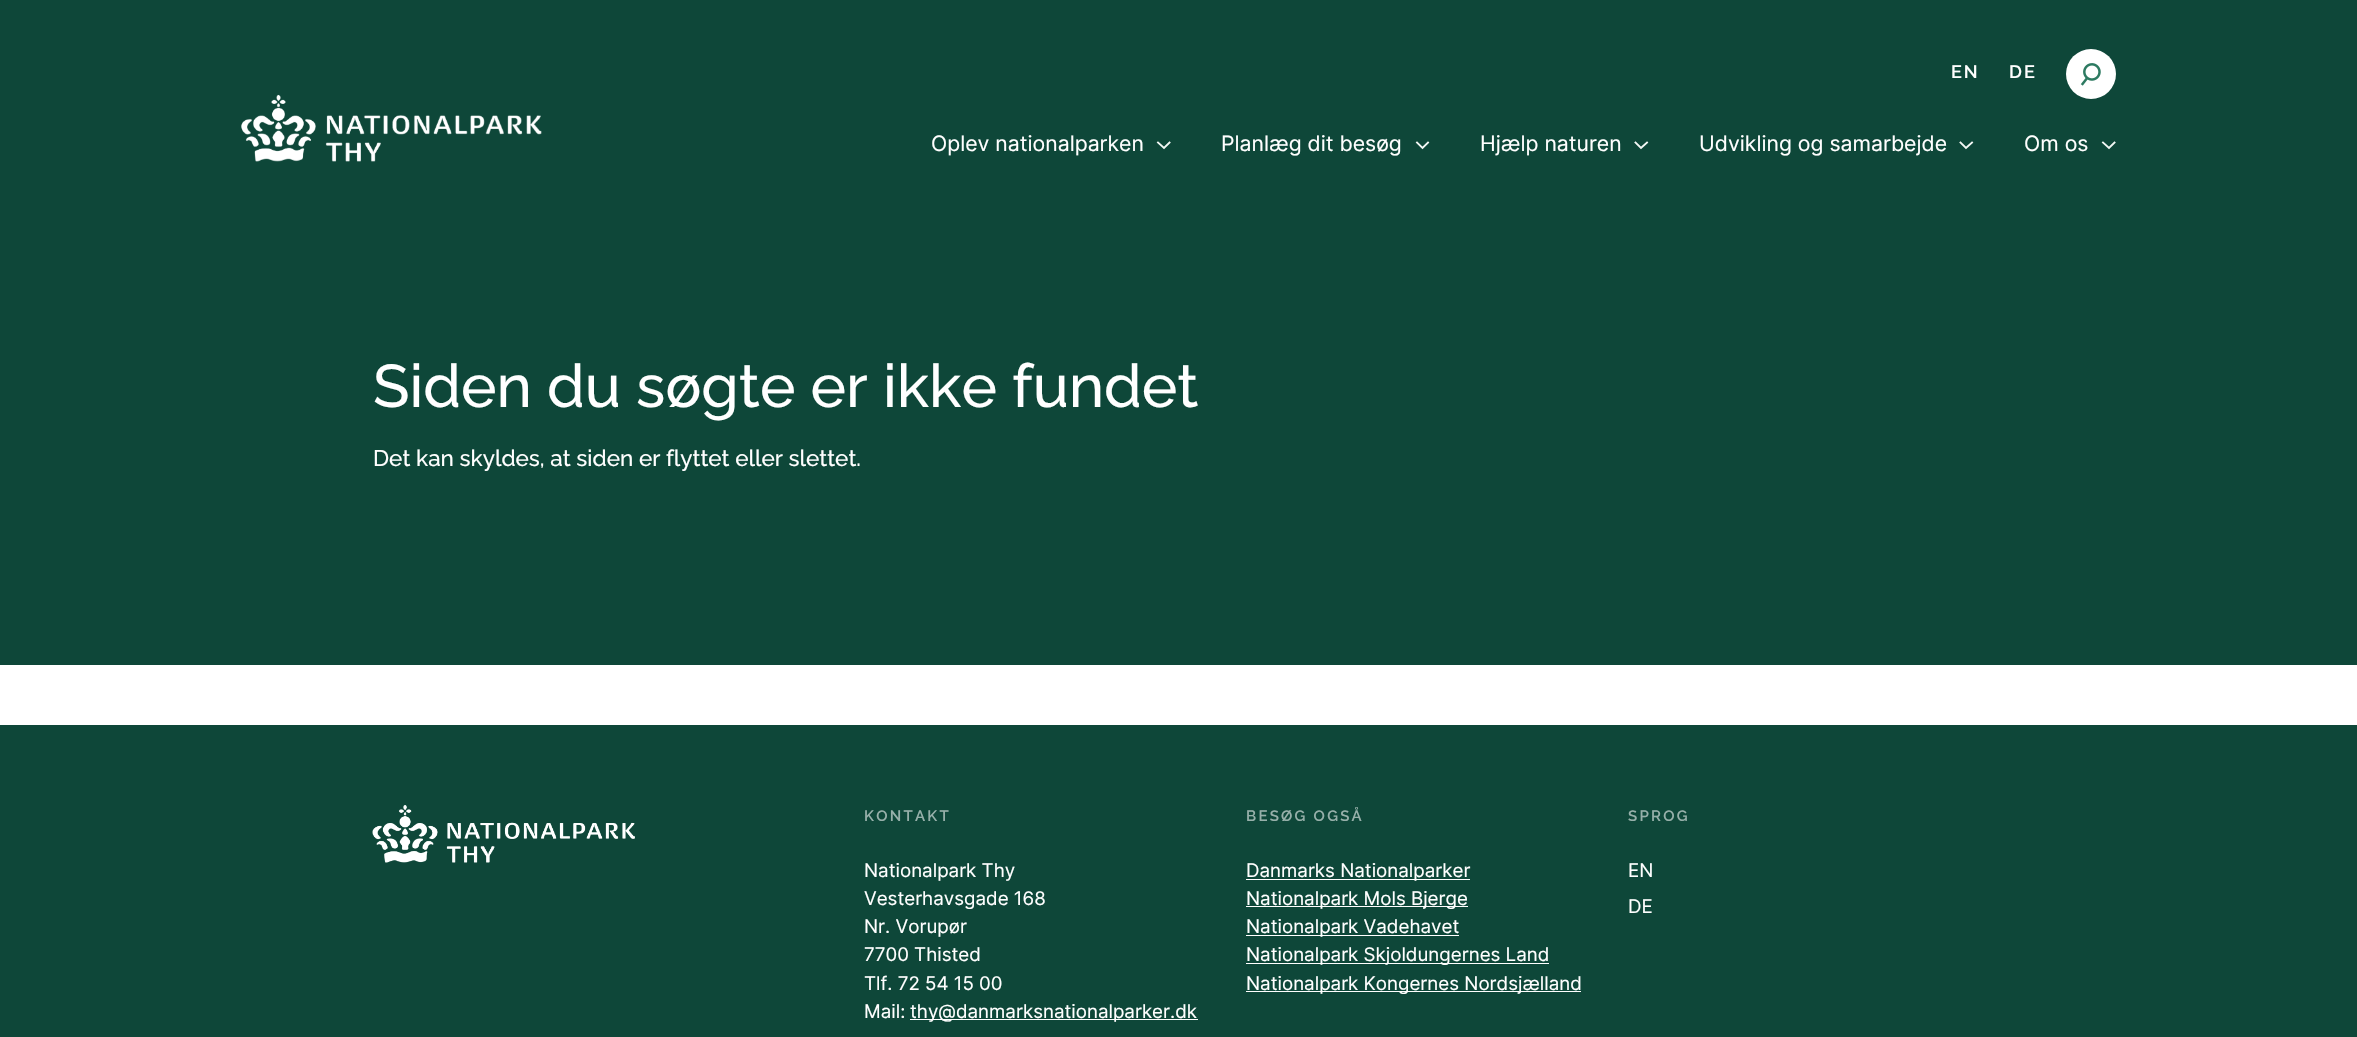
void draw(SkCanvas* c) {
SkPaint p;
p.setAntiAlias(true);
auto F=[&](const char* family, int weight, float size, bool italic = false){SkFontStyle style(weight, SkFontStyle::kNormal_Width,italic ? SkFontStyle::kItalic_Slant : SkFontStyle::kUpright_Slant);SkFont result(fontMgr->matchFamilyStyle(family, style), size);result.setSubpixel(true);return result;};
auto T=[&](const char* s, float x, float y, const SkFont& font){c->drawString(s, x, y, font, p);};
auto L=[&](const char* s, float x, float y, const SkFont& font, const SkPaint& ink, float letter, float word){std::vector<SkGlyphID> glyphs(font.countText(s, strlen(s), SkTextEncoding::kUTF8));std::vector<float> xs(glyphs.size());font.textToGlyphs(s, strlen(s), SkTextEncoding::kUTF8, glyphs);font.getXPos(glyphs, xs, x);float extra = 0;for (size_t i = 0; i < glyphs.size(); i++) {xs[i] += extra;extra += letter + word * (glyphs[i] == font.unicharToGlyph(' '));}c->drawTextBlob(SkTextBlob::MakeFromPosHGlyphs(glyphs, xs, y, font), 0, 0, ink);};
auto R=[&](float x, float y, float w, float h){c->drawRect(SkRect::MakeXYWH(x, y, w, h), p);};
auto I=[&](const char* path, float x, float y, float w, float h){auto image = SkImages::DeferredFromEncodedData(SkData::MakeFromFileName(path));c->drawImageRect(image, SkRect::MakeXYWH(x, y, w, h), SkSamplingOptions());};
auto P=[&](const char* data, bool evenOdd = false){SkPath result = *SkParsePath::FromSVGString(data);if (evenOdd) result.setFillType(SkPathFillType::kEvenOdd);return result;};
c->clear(0xffffffff);
p.setColor(0xff0e4739);
R(0,0,2357,665);
I("1.png",241,94,301,68);
auto f1 = F("Raleway",600,18,true);
p.setColor(0xffffffff);
L("EN",1951,78,f1,p,2,0);
L("DE",2009,78,f1,p,2,0);
c->drawCircle(2091,74,25,p);
I("2.png",2080,63,21,23);
auto f2 = F("Inter",400,21.25,true);
T("Oplev nationalparken",931,151,f2);
p.setStroke(true);
p.setStrokeWidth(1.9);
p.setStrokeCap(SkPaint::kSquare_Cap);
p.setColor(0xfff3f8f5);
c->drawPath(P("M1169.5 142.5l-5.5 5.5l-6-5.5"),p);
p.setStroke(false);
p.setColor(0xffffffff);
T("Planlæg dit besøg",1221,151,f2);
p.setStroke(true);
p.setColor(0xfff3f8f5);
c->drawPath(P("M1428 142.5l-5.5 5.5l-5.5-5.5"),p);
p.setStroke(false);
p.setColor(0xffffffff);
T("Hjælp naturen",1480,151,f2);
p.setStroke(true);
p.setColor(0xfff3f8f5);
c->drawPath(P("M1647 142.5l-6 5.5l-5.5-5.5"),p);
p.setStroke(false);
p.setColor(0xffffffff);
T("Udvikling og samarbejde",1699,151,f2);
p.setStroke(true);
p.setColor(0xfff3f8f5);
c->drawPath(P("M1972 142.5l-6 5.5l-5.5-5.5"),p);
p.setStroke(false);
p.setColor(0xffffffff);
T("Om os",2024,151,f2);
p.setStroke(true);
p.setColor(0xfff3f8f5);
c->drawPath(P("M2114.5 142.5l-5.5 5.5l-6-5.5"),p);
auto f3 = F("Raleway",500,60,true);
p.setStroke(false);
p.setColor(0xffffffff);
T("Siden du søgte er ikke fundet",373,407,f3);
auto f4 = F("Raleway",500,22.5,true);
T("Det kan skyldes, at siden er flyttet eller slettet.",373,466,f4);
p.setColor(0xff0e4739);
R(0,725,2357,312);
I("3.png",372,805,263,58);
auto f5 = F("Raleway",600,15,true);
p.setColor(0xff97b0aa);
L("KONTAKT",864,821,f5,p,2.25,0);
auto f6 = F("Inter",400,18.75,true);
p.setColor(0xffffffff);
T("Nationalpark Thy",864,877,f6);
T("Vesterhavsgade 168",864,905,f6);
T("Nr. Vorupør",864,933,f6);
T("7700 Thisted",864,961,f6);
T("Tlf. 72 54 15 00",864,990,f6);
T("Mail:",864,1018,f6);
R(910,1019,288,1);
T("thy@danmarksnationalparker.dk",910,1018,f6);
p.setColor(0xff97b0aa);
L("BESØG OGSÅ",1246,821,f5,p,2.25,0);
p.setColor(0xffffffff);
R(1246,879,224,1);
T("Danmarks Nationalparker",1246,877,f6);
R(1246,906,222,1);
T("Nationalpark Mols Bjerge",1246,905,f6);
R(1246,935,213,1);
T("Nationalpark Vadehavet",1246,933,f6);
R(1246,963,303,1);
T("Nationalpark Skjoldungernes Land",1246,961,f6);
R(1246,991,335,1);
T("Nationalpark Kongernes Nordsjælland",1246,990,f6);
p.setColor(0xff97b0aa);
L("SPROG",1628,821,f5,p,2.25,0);
p.setColor(0xffffffff);
T("EN",1628,877,f6);
T("DE",1628,913,f6);
}
